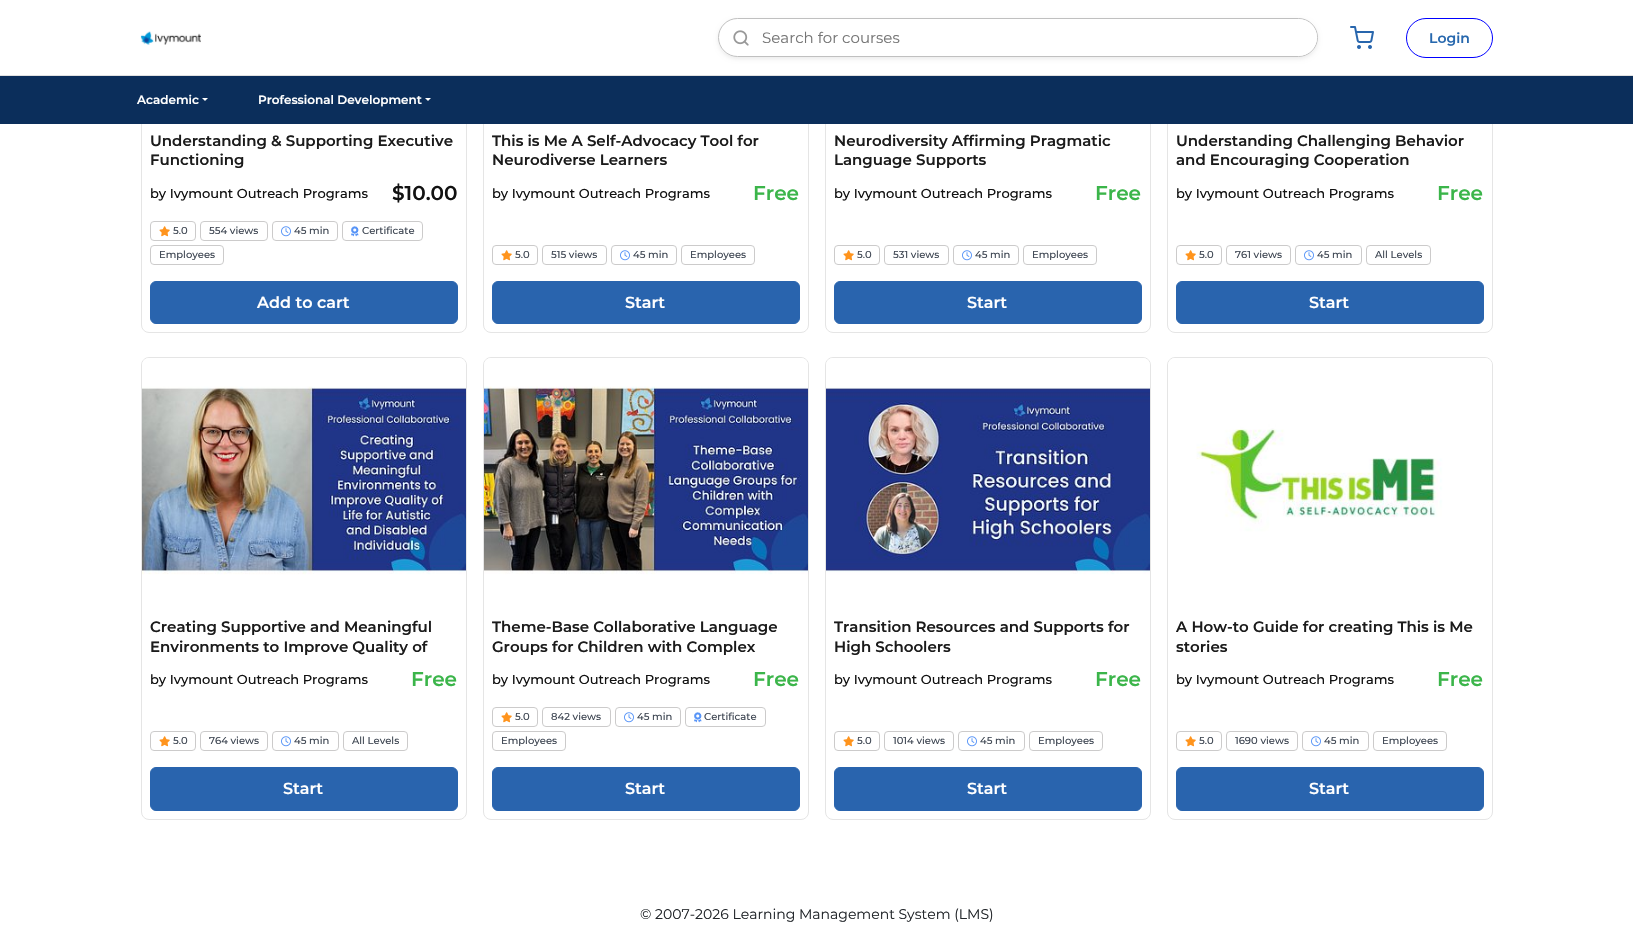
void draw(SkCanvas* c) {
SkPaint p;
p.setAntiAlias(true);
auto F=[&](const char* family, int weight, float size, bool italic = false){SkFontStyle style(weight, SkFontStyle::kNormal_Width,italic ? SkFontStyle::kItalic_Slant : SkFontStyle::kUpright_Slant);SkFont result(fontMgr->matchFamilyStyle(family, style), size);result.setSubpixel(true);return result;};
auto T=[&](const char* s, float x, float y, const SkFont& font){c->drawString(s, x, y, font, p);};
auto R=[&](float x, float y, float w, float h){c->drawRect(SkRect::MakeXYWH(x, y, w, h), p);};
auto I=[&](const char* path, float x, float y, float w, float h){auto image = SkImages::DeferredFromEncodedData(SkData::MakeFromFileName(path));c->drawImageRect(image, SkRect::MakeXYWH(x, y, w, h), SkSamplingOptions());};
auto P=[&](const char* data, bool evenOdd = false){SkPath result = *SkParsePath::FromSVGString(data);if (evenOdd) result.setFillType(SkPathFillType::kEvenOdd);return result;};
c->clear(0xffffffff);
p.setStroke(true);
p.setStrokeWidth(1);
p.setColor(0xffe5e5e5);
c->drawRoundRect(SkRect::MakeXYWH(141.5,-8.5,325,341),7.5,7.5,p);
c->drawRoundRect(SkRect::MakeXYWH(483.5,-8.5,325,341),7.5,7.5,p);
c->drawRoundRect(SkRect::MakeXYWH(825.5,-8.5,325,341),7.5,7.5,p);
c->drawRoundRect(SkRect::MakeXYWH(1167.5,-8.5,325,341),7.5,7.5,p);
p.setStroke(false);
p.setColor(0xffffffff);
R(141,0,1352,75);
p.setColor(0xffe1e1e1);
R(0,75,1633,1);
I("1.png",140,31,61,14);
c->save();
c->clipPath(P("M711 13h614v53h-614zm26.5 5h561c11 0 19.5 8.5 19.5 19.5c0 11-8.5 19.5-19.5 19.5h-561c-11 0-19.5-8.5-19.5-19.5c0-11 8.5-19.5 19.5-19.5z",true),true);
p.setColor(0x14000000);
p.setMaskFilter(SkMaskFilter::MakeBlur(kNormal_SkBlurStyle, 2));
c->drawRoundRect(SkRect::MakeXYWH(718,20,600,39),19.5,19.5,p);
p.setMaskFilter(nullptr);
c->restore();
p.setStroke(true);
p.setColor(0xffc0c0c0);
c->drawRoundRect(SkRect::MakeXYWH(718.5,18.5,599,38),19,19,p);
I("2.png",733,30,16,16);
p.setStroke(false);
p.setColor(0xffffffff);
c->drawPath(P("M761 19h537.5c10 0 18.5 8.5 18.5 18.5c0 10-8.5 18.5-18.5 18.5h-537.5z"),p);
auto f1 = F("Montserrat",400,15);
p.setColor(0xff757575);
T("Search for courses",762,43,f1);
I("3.png",1350,26,24,23);
p.setStroke(true);
p.setColor(0xff0000ff);
c->drawRoundRect(SkRect::MakeXYWH(1406.5,18.5,86,39),19.5,19.5,p);
auto f2 = F("Montserrat",600,14);
p.setStroke(false);
p.setColor(0xff2768ae);
T("Login",1429,43,f2);
p.setColor(0xff0b2e5b);
R(0,76,1633,48);
auto f3 = F("Montserrat",600,12);
p.setColor(0xffffffff);
T("Academic",137,104,f3);
c->drawPath(P("M202 98h6l-3 3z"),p);
T("Professional Development",258,104,f3);
c->drawPath(P("M425 98h6l-3 3z"),p);
auto f4 = F("Montserrat",600,15);
p.setColor(0xff1b1b1b);
T("Understanding & Supporting Executive",150,146,f4);
T("Functioning",150,165,f4);
auto f5 = F("Montserrat",500,13);
p.setColor(0xff121212);
T("by Ivymount Outreach Programs",150,198,f5);
auto f6 = F("Montserrat",600,20);
T("$10.00",392,200,f6);
p.setStroke(true);
p.setColor(0xffcccbcb);
c->drawRoundRect(SkRect::MakeXYWH(150.5,221.5,45,19),3.5,3.5,p);
I("4.png",159,226,11,11);
auto f7 = F("Montserrat",500,10);
p.setStroke(false);
p.setColor(0xff404854);
T("5.0",173,234,f7);
p.setStroke(true);
p.setColor(0xffcccbcb);
c->drawRoundRect(SkRect::MakeXYWH(200.5,221.5,67,19),3.5,3.5,p);
p.setStroke(false);
p.setColor(0xff404854);
T("554 views",209,234,f7);
p.setStroke(true);
p.setColor(0xffcccbcb);
c->drawRoundRect(SkRect::MakeXYWH(272.5,221.5,65,19),3.5,3.5,p);
I("5.png",281,226,10,11);
p.setStroke(false);
p.setColor(0xff404854);
T("45 min",294,234,f7);
p.setStroke(true);
p.setColor(0xffcccbcb);
c->drawRoundRect(SkRect::MakeXYWH(342.5,221.5,80,19),3.5,3.5,p);
I("6.png",351,226,8,11);
p.setStroke(false);
p.setColor(0xff404854);
T("Certificate",362,234,f7);
p.setStroke(true);
p.setColor(0xffcccbcb);
c->drawRoundRect(SkRect::MakeXYWH(150.5,245.5,73,19),3.5,3.5,p);
p.setStroke(false);
p.setColor(0xff404854);
T("Employees",159,258,f7);
p.setColor(0xff2964ae);
c->drawRoundRect(SkRect::MakeXYWH(150.5,281.5,307,42),5.5,5.5,p);
p.setStroke(true);
c->drawRoundRect(SkRect::MakeXYWH(150.5,281.5,307,42),5.5,5.5,p);
auto f8 = F("Montserrat",600,16);
p.setStroke(false);
p.setColor(0xffffffff);
T("Add to cart",257,308,f8);
p.setColor(0xff1b1b1b);
T("This is Me A Self-Advocacy Tool for",492,146,f4);
T("Neurodiverse Learners",492,165,f4);
p.setColor(0xff121212);
T("by Ivymount Outreach Programs",492,198,f5);
p.setColor(0xff3bb54a);
T("Free",753,200,f6);
p.setStroke(true);
p.setColor(0xffcccbcb);
c->drawRoundRect(SkRect::MakeXYWH(492.5,245.5,45,19),3.5,3.5,p);
I("4.png",501,250,11,11);
p.setStroke(false);
p.setColor(0xff404854);
T("5.0",515,258,f7);
p.setStroke(true);
p.setColor(0xffcccbcb);
c->drawRoundRect(SkRect::MakeXYWH(542.5,245.5,64,19),3.5,3.5,p);
p.setStroke(false);
p.setColor(0xff404854);
T("515 views",551,258,f7);
p.setStroke(true);
p.setColor(0xffcccbcb);
c->drawRoundRect(SkRect::MakeXYWH(611.5,245.5,65,19),3.5,3.5,p);
I("5.png",620,250,10,11);
p.setStroke(false);
p.setColor(0xff404854);
T("45 min",633,258,f7);
p.setStroke(true);
p.setColor(0xffcccbcb);
c->drawRoundRect(SkRect::MakeXYWH(681.5,245.5,73,19),3.5,3.5,p);
p.setStroke(false);
p.setColor(0xff404854);
T("Employees",690,258,f7);
p.setColor(0xff2964ae);
c->drawRoundRect(SkRect::MakeXYWH(492.5,281.5,307,42),5.5,5.5,p);
p.setStroke(true);
c->drawRoundRect(SkRect::MakeXYWH(492.5,281.5,307,42),5.5,5.5,p);
p.setStroke(false);
p.setColor(0xffffffff);
T("Start",625,308,f8);
p.setColor(0xff1b1b1b);
T("Neurodiversity Affirming Pragmatic",834,146,f4);
T("Language Supports",834,165,f4);
p.setColor(0xff121212);
T("by Ivymount Outreach Programs",834,198,f5);
p.setColor(0xff3bb54a);
T("Free",1095,200,f6);
p.setStroke(true);
p.setColor(0xffcccbcb);
c->drawRoundRect(SkRect::MakeXYWH(834.5,245.5,45,19),3.5,3.5,p);
I("4.png",843,250,11,11);
p.setStroke(false);
p.setColor(0xff404854);
T("5.0",857,258,f7);
p.setStroke(true);
p.setColor(0xffcccbcb);
c->drawRoundRect(SkRect::MakeXYWH(884.5,245.5,64,19),3.5,3.5,p);
p.setStroke(false);
p.setColor(0xff404854);
T("531 views",893,258,f7);
p.setStroke(true);
p.setColor(0xffcccbcb);
c->drawRoundRect(SkRect::MakeXYWH(953.5,245.5,65,19),3.5,3.5,p);
I("5.png",962,250,10,11);
p.setStroke(false);
p.setColor(0xff404854);
T("45 min",975,258,f7);
p.setStroke(true);
p.setColor(0xffcccbcb);
c->drawRoundRect(SkRect::MakeXYWH(1023.5,245.5,73,19),3.5,3.5,p);
p.setStroke(false);
p.setColor(0xff404854);
T("Employees",1032,258,f7);
p.setColor(0xff2964ae);
c->drawRoundRect(SkRect::MakeXYWH(834.5,281.5,307,42),5.5,5.5,p);
p.setStroke(true);
c->drawRoundRect(SkRect::MakeXYWH(834.5,281.5,307,42),5.5,5.5,p);
p.setStroke(false);
p.setColor(0xffffffff);
T("Start",967,308,f8);
p.setColor(0xff1b1b1b);
T("Understanding Challenging Behavior",1176,146,f4);
T("and Encouraging Cooperation",1176,165,f4);
p.setColor(0xff121212);
T("by Ivymount Outreach Programs",1176,198,f5);
p.setColor(0xff3bb54a);
T("Free",1437,200,f6);
p.setStroke(true);
p.setColor(0xffcccbcb);
c->drawRoundRect(SkRect::MakeXYWH(1176.5,245.5,45,19),3.5,3.5,p);
I("4.png",1185,250,11,11);
p.setStroke(false);
p.setColor(0xff404854);
T("5.0",1199,258,f7);
p.setStroke(true);
p.setColor(0xffcccbcb);
c->drawRoundRect(SkRect::MakeXYWH(1226.5,245.5,64,19),3.5,3.5,p);
p.setStroke(false);
p.setColor(0xff404854);
T("761 views",1235,258,f7);
p.setStroke(true);
p.setColor(0xffcccbcb);
c->drawRoundRect(SkRect::MakeXYWH(1295.5,245.5,66,19),3.5,3.5,p);
I("5.png",1304,250,10,11);
p.setStroke(false);
p.setColor(0xff404854);
T("45 min",1317,258,f7);
p.setStroke(true);
p.setColor(0xffcccbcb);
c->drawRoundRect(SkRect::MakeXYWH(1366.5,245.5,64,19),3.5,3.5,p);
p.setStroke(false);
p.setColor(0xff404854);
T("All Levels",1375,258,f7);
p.setColor(0xff2964ae);
c->drawRoundRect(SkRect::MakeXYWH(1176.5,281.5,307,42),5.5,5.5,p);
p.setStroke(true);
c->drawRoundRect(SkRect::MakeXYWH(1176.5,281.5,307,42),5.5,5.5,p);
p.setStroke(false);
p.setColor(0xffffffff);
T("Start",1309,308,f8);
p.setStroke(true);
p.setColor(0xffe5e5e5);
c->drawRoundRect(SkRect::MakeXYWH(141.5,357.5,325,462),7.5,7.5,p);
I("7.png",142,358,324,243);
p.setStroke(false);
p.setColor(0xff1b1b1b);
T("Creating Supportive and Meaningful",150,632,f4);
T("Environments to Improve Quality of",150,652,f4);
p.setColor(0xff121212);
T("by Ivymount Outreach Programs",150,684,f5);
p.setColor(0xff3bb54a);
T("Free",411,686,f6);
p.setStroke(true);
p.setColor(0xffcccbcb);
c->drawRoundRect(SkRect::MakeXYWH(150.5,731.5,45,19),3.5,3.5,p);
I("4.png",159,736,11,11);
p.setStroke(false);
p.setColor(0xff404854);
T("5.0",173,744,f7);
p.setStroke(true);
p.setColor(0xffcccbcb);
c->drawRoundRect(SkRect::MakeXYWH(200.5,731.5,67,19),3.5,3.5,p);
p.setStroke(false);
p.setColor(0xff404854);
T("764 views",209,744,f7);
p.setStroke(true);
p.setColor(0xffcccbcb);
c->drawRoundRect(SkRect::MakeXYWH(272.5,731.5,66,19),3.5,3.5,p);
I("5.png",281,736,10,11);
p.setStroke(false);
p.setColor(0xff404854);
T("45 min",294,744,f7);
p.setStroke(true);
p.setColor(0xffcccbcb);
c->drawRoundRect(SkRect::MakeXYWH(343.5,731.5,64,19),3.5,3.5,p);
p.setStroke(false);
p.setColor(0xff404854);
T("All Levels",352,744,f7);
p.setColor(0xff2964ae);
c->drawRoundRect(SkRect::MakeXYWH(150.5,767.5,307,43),5.5,5.5,p);
p.setStroke(true);
c->drawRoundRect(SkRect::MakeXYWH(150.5,767.5,307,43),5.5,5.5,p);
p.setStroke(false);
p.setColor(0xffffffff);
T("Start",283,794,f8);
p.setStroke(true);
p.setColor(0xffe5e5e5);
c->drawRoundRect(SkRect::MakeXYWH(483.5,357.5,325,462),7.5,7.5,p);
I("8.png",484,358,324,243);
p.setStroke(false);
p.setColor(0xff1b1b1b);
T("Theme-Base Collaborative Language",492,632,f4);
T("Groups for Children with Complex",492,652,f4);
p.setColor(0xff121212);
T("by Ivymount Outreach Programs",492,684,f5);
p.setColor(0xff3bb54a);
T("Free",753,686,f6);
p.setStroke(true);
p.setColor(0xffcccbcb);
c->drawRoundRect(SkRect::MakeXYWH(492.5,707.5,45,19),3.5,3.5,p);
I("4.png",501,712,11,11);
p.setStroke(false);
p.setColor(0xff404854);
T("5.0",515,720,f7);
p.setStroke(true);
p.setColor(0xffcccbcb);
c->drawRoundRect(SkRect::MakeXYWH(542.5,707.5,68,19),3.5,3.5,p);
p.setStroke(false);
p.setColor(0xff404854);
T("842 views",551,720,f7);
p.setStroke(true);
p.setColor(0xffcccbcb);
c->drawRoundRect(SkRect::MakeXYWH(615.5,707.5,65,19),3.5,3.5,p);
I("5.png",624,712,10,11);
p.setStroke(false);
p.setColor(0xff404854);
T("45 min",637,720,f7);
p.setStroke(true);
p.setColor(0xffcccbcb);
c->drawRoundRect(SkRect::MakeXYWH(685.5,707.5,80,19),3.5,3.5,p);
I("6.png",694,712,8,11);
p.setStroke(false);
p.setColor(0xff404854);
T("Certificate",704,720,f7);
p.setStroke(true);
p.setColor(0xffcccbcb);
c->drawRoundRect(SkRect::MakeXYWH(492.5,731.5,73,19),3.5,3.5,p);
p.setStroke(false);
p.setColor(0xff404854);
T("Employees",501,744,f7);
p.setColor(0xff2964ae);
c->drawRoundRect(SkRect::MakeXYWH(492.5,767.5,307,43),5.5,5.5,p);
p.setStroke(true);
c->drawRoundRect(SkRect::MakeXYWH(492.5,767.5,307,43),5.5,5.5,p);
p.setStroke(false);
p.setColor(0xffffffff);
T("Start",625,794,f8);
p.setStroke(true);
p.setColor(0xffe5e5e5);
c->drawRoundRect(SkRect::MakeXYWH(825.5,357.5,325,462),7.5,7.5,p);
I("9.png",826,358,324,243);
p.setStroke(false);
p.setColor(0xff1b1b1b);
T("Transition Resources and Supports for",834,632,f4);
T("High Schoolers",834,652,f4);
p.setColor(0xff121212);
T("by Ivymount Outreach Programs",834,684,f5);
p.setColor(0xff3bb54a);
T("Free",1095,686,f6);
p.setStroke(true);
p.setColor(0xffcccbcb);
c->drawRoundRect(SkRect::MakeXYWH(834.5,731.5,45,19),3.5,3.5,p);
I("4.png",843,736,11,11);
p.setStroke(false);
p.setColor(0xff404854);
T("5.0",857,744,f7);
p.setStroke(true);
p.setColor(0xffcccbcb);
c->drawRoundRect(SkRect::MakeXYWH(884.5,731.5,69,19),3.5,3.5,p);
p.setStroke(false);
p.setColor(0xff404854);
T("1014 views",893,744,f7);
p.setStroke(true);
p.setColor(0xffcccbcb);
c->drawRoundRect(SkRect::MakeXYWH(958.5,731.5,66,19),3.5,3.5,p);
I("5.png",967,736,10,11);
p.setStroke(false);
p.setColor(0xff404854);
T("45 min",980,744,f7);
p.setStroke(true);
p.setColor(0xffcccbcb);
c->drawRoundRect(SkRect::MakeXYWH(1029.5,731.5,73,19),3.5,3.5,p);
p.setStroke(false);
p.setColor(0xff404854);
T("Employees",1038,744,f7);
p.setColor(0xff2964ae);
c->drawRoundRect(SkRect::MakeXYWH(834.5,767.5,307,43),5.5,5.5,p);
p.setStroke(true);
c->drawRoundRect(SkRect::MakeXYWH(834.5,767.5,307,43),5.5,5.5,p);
p.setStroke(false);
p.setColor(0xffffffff);
T("Start",967,794,f8);
p.setStroke(true);
p.setColor(0xffe5e5e5);
c->drawRoundRect(SkRect::MakeXYWH(1167.5,357.5,325,462),7.5,7.5,p);
I("10.png",1168,358,324,243);
p.setStroke(false);
p.setColor(0xff1b1b1b);
T("A How-to Guide for creating This is Me",1176,632,f4);
T("stories",1176,652,f4);
p.setColor(0xff121212);
T("by Ivymount Outreach Programs",1176,684,f5);
p.setColor(0xff3bb54a);
T("Free",1437,686,f6);
p.setStroke(true);
p.setColor(0xffcccbcb);
c->drawRoundRect(SkRect::MakeXYWH(1176.5,731.5,45,19),3.5,3.5,p);
I("4.png",1185,736,11,11);
p.setStroke(false);
p.setColor(0xff404854);
T("5.0",1199,744,f7);
p.setStroke(true);
p.setColor(0xffcccbcb);
c->drawRoundRect(SkRect::MakeXYWH(1226.5,731.5,71,19),3.5,3.5,p);
p.setStroke(false);
p.setColor(0xff404854);
T("1690 views",1235,744,f7);
p.setStroke(true);
p.setColor(0xffcccbcb);
c->drawRoundRect(SkRect::MakeXYWH(1302.5,731.5,66,19),3.5,3.5,p);
I("5.png",1311,736,10,11);
p.setStroke(false);
p.setColor(0xff404854);
T("45 min",1324,744,f7);
p.setStroke(true);
p.setColor(0xffcccbcb);
c->drawRoundRect(SkRect::MakeXYWH(1373.5,731.5,73,19),3.5,3.5,p);
p.setStroke(false);
p.setColor(0xff404854);
T("Employees",1382,744,f7);
p.setColor(0xff2964ae);
c->drawRoundRect(SkRect::MakeXYWH(1176.5,767.5,307,43),5.5,5.5,p);
p.setStroke(true);
c->drawRoundRect(SkRect::MakeXYWH(1176.5,767.5,307,43),5.5,5.5,p);
p.setStroke(false);
p.setColor(0xffffffff);
T("Start",1309,794,f8);
auto f9 = F("Montserrat",400,14);
p.setColor(0xff212529);
T("© 2007-2026 Learning Management System (LMS)",640,919,f9);
}
